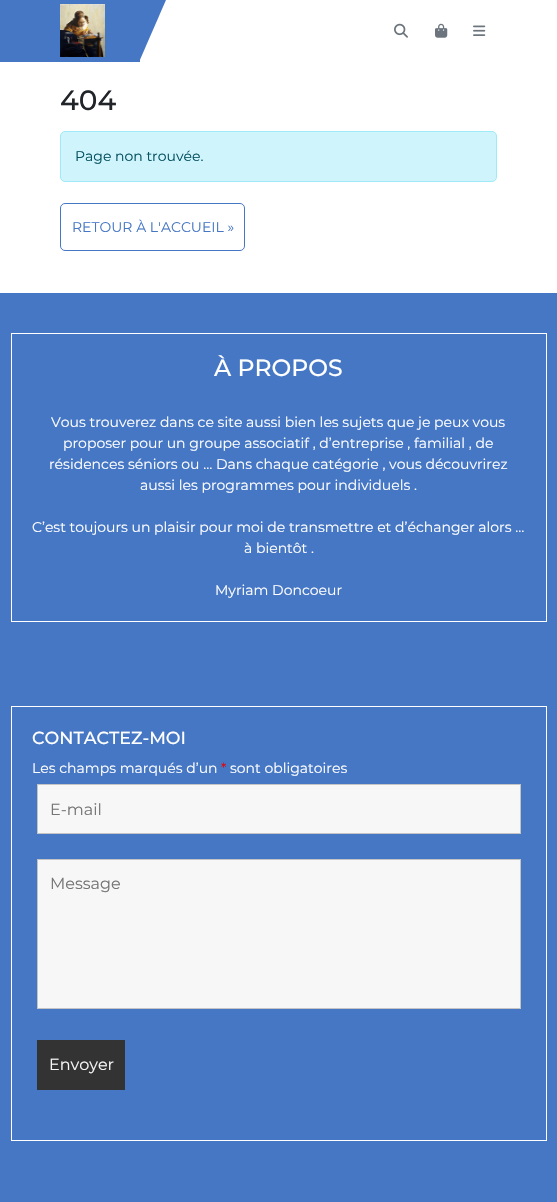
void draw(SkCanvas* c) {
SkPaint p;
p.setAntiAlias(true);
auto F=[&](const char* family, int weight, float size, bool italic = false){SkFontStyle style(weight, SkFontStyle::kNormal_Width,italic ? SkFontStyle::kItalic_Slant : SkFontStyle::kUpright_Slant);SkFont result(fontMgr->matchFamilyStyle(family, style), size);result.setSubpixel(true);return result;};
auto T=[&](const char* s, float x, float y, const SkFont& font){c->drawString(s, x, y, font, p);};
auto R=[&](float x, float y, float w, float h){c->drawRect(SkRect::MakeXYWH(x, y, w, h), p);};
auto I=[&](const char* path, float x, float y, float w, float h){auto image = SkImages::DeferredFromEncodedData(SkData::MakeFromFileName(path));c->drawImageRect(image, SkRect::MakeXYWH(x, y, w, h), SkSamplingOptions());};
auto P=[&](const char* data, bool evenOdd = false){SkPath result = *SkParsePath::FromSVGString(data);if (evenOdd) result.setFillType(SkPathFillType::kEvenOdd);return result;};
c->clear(0xffffffff);
p.setColor(0xff4677c4);
R(0,0,140,62);
c->drawPath(P("M139 0h27l-27 62z"),p);
I("1.png",60,4,45,53);
I("2.png",394,23,14,15);
I("3.png",435,23,13,15);
I("4.png",473,25,13,11);
auto f1 = F("Montserrat",500,28);
p.setColor(0xff212529);
T("404",60,110,f1);
p.setColor(0xffcff4fc);
c->drawRoundRect(SkRect::MakeXYWH(60.5,131.5,436,50),4.5,4.5,p);
p.setStroke(true);
p.setStrokeWidth(1);
p.setColor(0xff9eeaf9);
c->drawRoundRect(SkRect::MakeXYWH(60.5,131.5,436,50),4.5,4.5,p);
auto f2 = F("Montserrat",400,14);
p.setStroke(false);
p.setColor(0xff055160);
T("Page non trouvée.",75,161,f2);
p.setStroke(true);
p.setColor(0xff4677c4);
c->drawRoundRect(SkRect::MakeXYWH(60.5,203.5,184,47),4.5,4.5,p);
p.setStroke(false);
T("RETOUR À L'ACCUEIL »",72,232,f2);
R(0,293,557,909);
p.setStroke(true);
p.setColor(0xffffffff);
c->drawRect(SkRect::MakeXYWH(11.5,333.5,535,288),p);
auto f3 = F("Montserrat",500,23.5);
p.setStroke(false);
T("À PROPOS",214,376,f3);
T("Vous trouverez dans ce site aussi bien les sujets que je peux vous",51,427,f2);
T("proposer pour un groupe associatif , d’entreprise , familial , de",63,448,f2);
T("résidences séniors ou … Dans chaque catégorie , vous découvrirez",49,469,f2);
T("aussi les programmes pour individuels .",140,490,f2);
T("C’est toujours un plaisir pour moi de transmettre et d’échanger alors …",32,532,f2);
T("à bientôt .",244,553,f2);
T("Myriam Doncoeur",215,595,f2);
p.setStroke(true);
c->drawRect(SkRect::MakeXYWH(11.5,706.5,535,434),p);
auto f4 = F("Montserrat",500,17.5);
p.setStroke(false);
T("CONTACTEZ-MOI",32,744,f4);
T("Les champs marqués d’un",32,773,f2);
p.setColor(0xffe80000);
T("*",221,773,f2);
p.setColor(0xffffffff);
T("sont obligatoires",230,773,f2);
p.setColor(0xfff7f7f7);
c->drawRect(SkRect::MakeXYWH(37.5,784.5,483,49),p);
p.setStroke(true);
p.setColor(0xffc4c4c4);
c->drawRect(SkRect::MakeXYWH(37.5,784.5,483,49),p);
auto f5 = F("Montserrat",400,16);
p.setStroke(false);
p.setColor(0xff757575);
T("E-mail",50,815,f5);
p.setColor(0xfff7f7f7);
c->drawRect(SkRect::MakeXYWH(37.5,859.5,483,149),p);
p.setStroke(true);
p.setColor(0xffc4c4c4);
c->drawRect(SkRect::MakeXYWH(37.5,859.5,483,149),p);
p.setStroke(false);
p.setColor(0xff757575);
T("Message",50,889,f5);
p.setColor(0xff333333);
R(37,1040,88,50);
p.setColor(0xfff7f7f7);
T("Envoyer",49,1070,f5);
}
